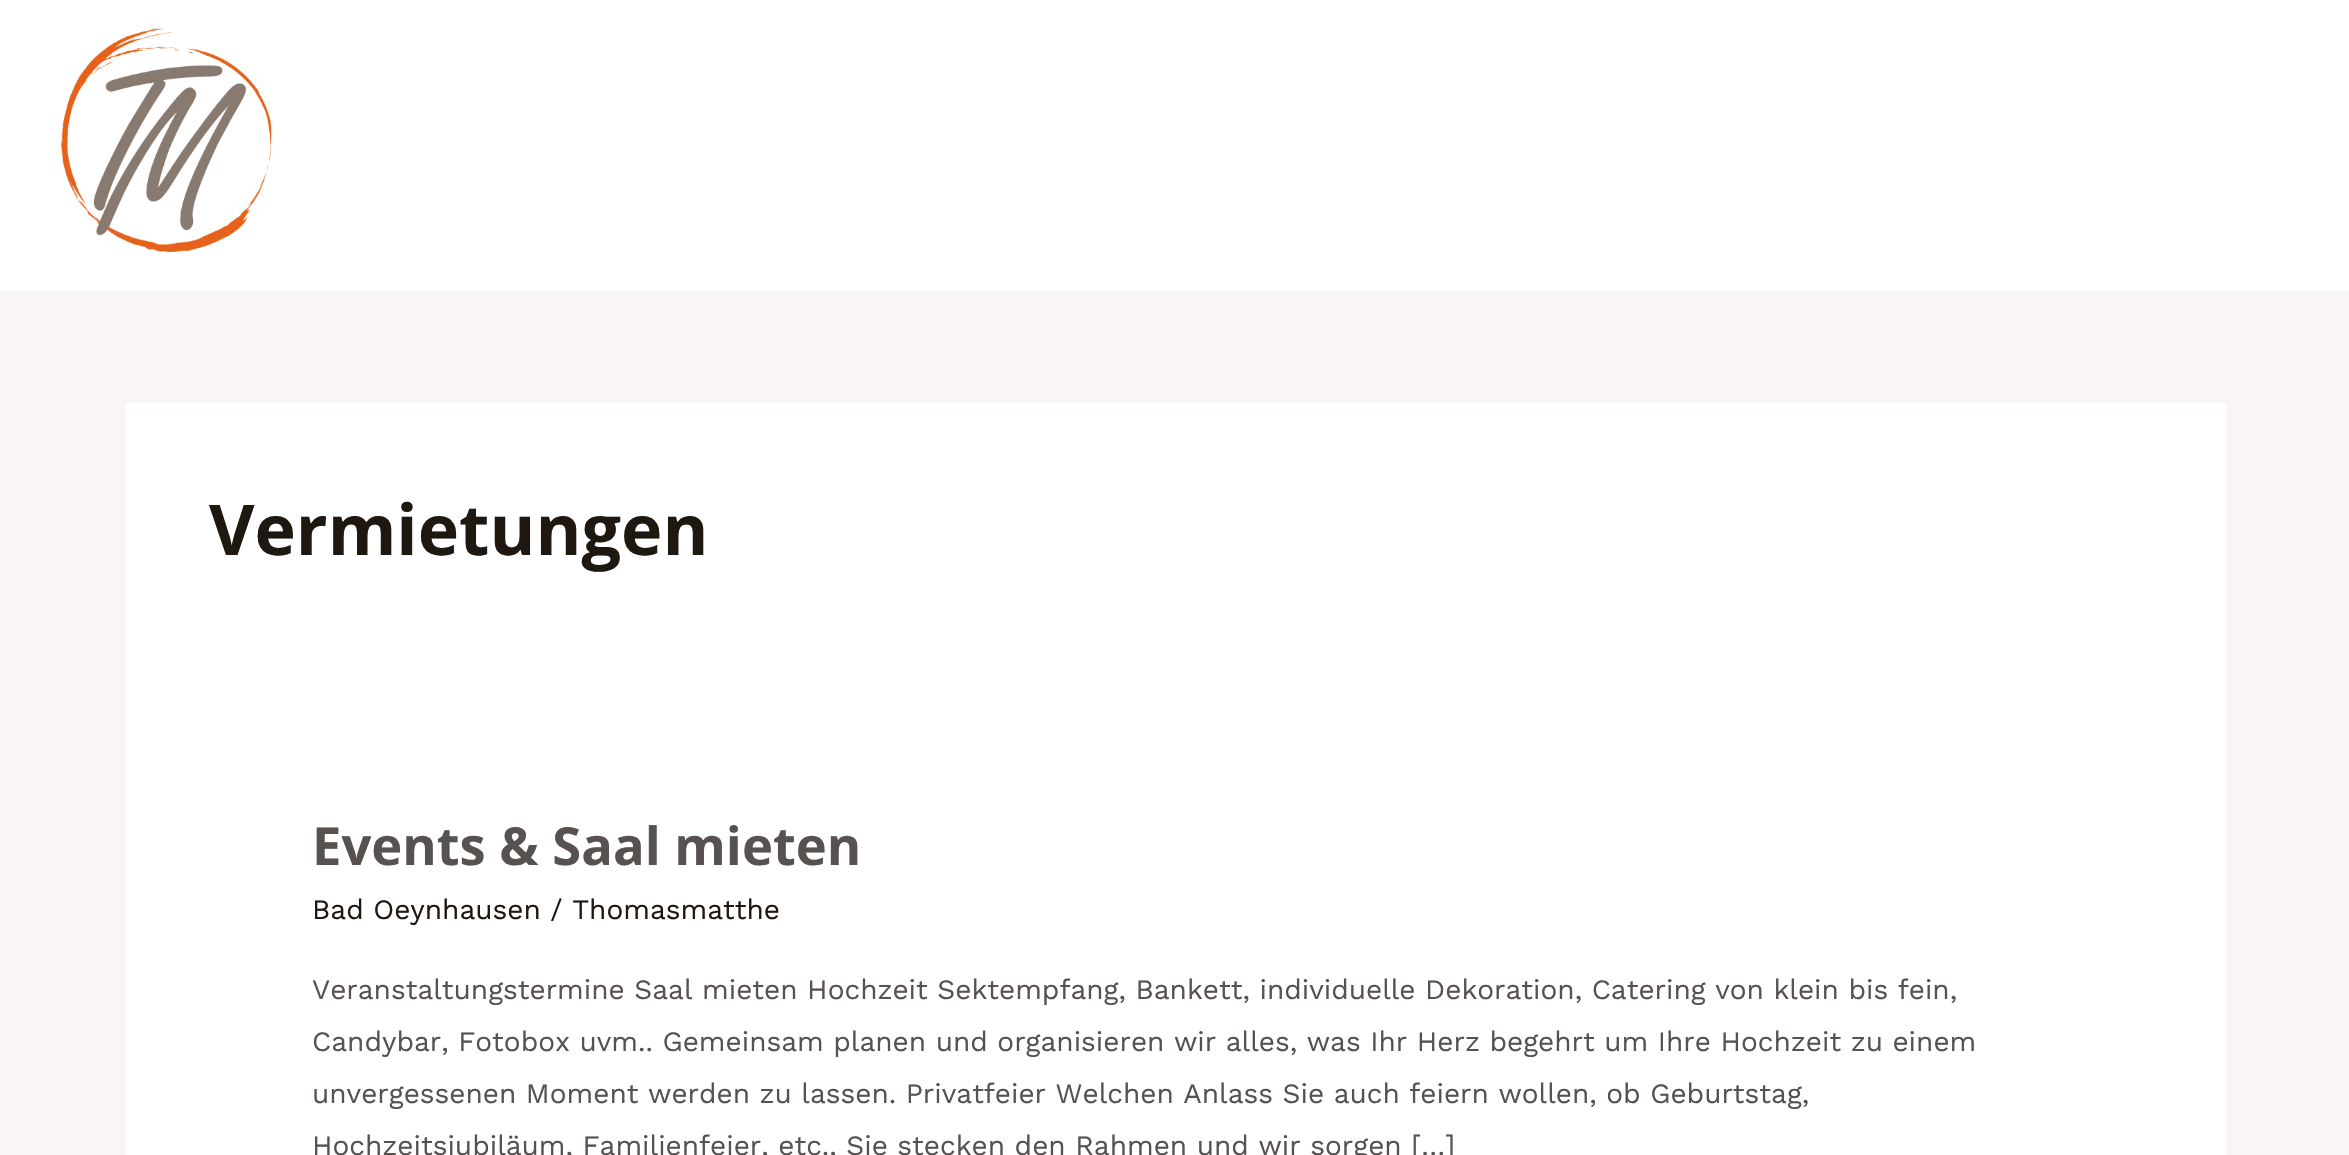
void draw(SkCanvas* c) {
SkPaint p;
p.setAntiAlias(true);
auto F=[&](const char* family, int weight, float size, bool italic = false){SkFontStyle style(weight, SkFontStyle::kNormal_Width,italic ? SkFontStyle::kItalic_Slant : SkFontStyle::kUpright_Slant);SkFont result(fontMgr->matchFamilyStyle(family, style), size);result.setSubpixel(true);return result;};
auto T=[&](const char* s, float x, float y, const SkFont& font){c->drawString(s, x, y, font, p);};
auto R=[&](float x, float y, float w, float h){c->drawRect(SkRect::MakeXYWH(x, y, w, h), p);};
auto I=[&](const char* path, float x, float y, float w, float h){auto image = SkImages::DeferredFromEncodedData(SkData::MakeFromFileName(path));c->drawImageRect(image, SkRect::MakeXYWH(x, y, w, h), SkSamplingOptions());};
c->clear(0xfff8f5f4);
p.setColor(0xffffffff);
R(0,0,2349,291);
I("1.png",61,28,211,224);
R(126,403,2100,752);
auto f1 = F("Open Sans",700,70);
p.setColor(0xff1e1810);
T("Vermietungen",209,555,f1);
auto f2 = F("Open Sans",700,52.5);
p.setColor(0xff575250);
T("Events & Saal mieten",312,865,f2);
auto f3 = F("Work Sans",400,28);
p.setColor(0xff1e1810);
T("Bad Oeynhausen / Thomasmatthe",312,919,f3);
p.setColor(0xff575250);
T("Veranstaltungstermine Saal mieten Hochzeit Sektempfang, Bankett, individuelle Dekoration, Catering von klein bis fein,",312,999,f3);
T("Candybar, Fotobox uvm.. Gemeinsam planen und organisieren wir alles, was Ihr Herz begehrt um Ihre Hochzeit zu einem",312,1051,f3);
T("unvergessenen Moment werden zu lassen. Privatfeier Welchen Anlass Sie auch feiern wollen, ob Geburtstag,",312,1103,f3);
T("Hochzeitsjubiläum, Familienfeier, etc., Sie stecken den Rahmen und wir sorgen […]",312,1155,f3);
}
